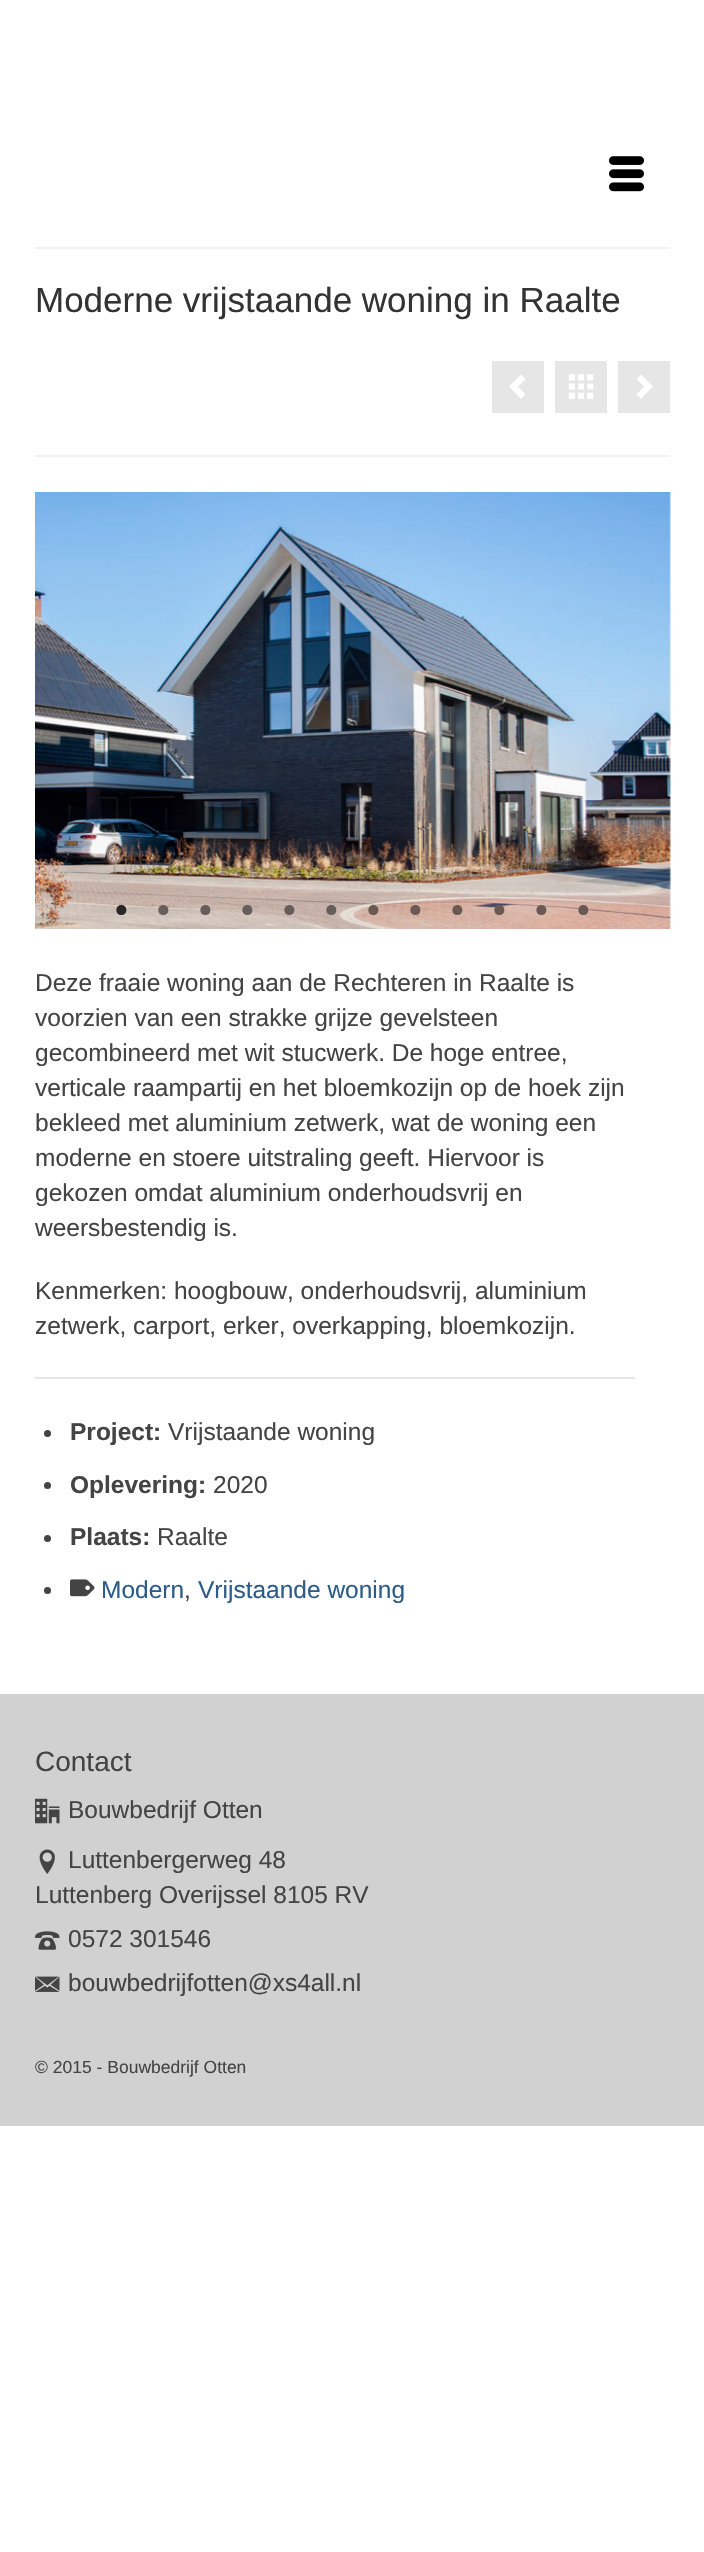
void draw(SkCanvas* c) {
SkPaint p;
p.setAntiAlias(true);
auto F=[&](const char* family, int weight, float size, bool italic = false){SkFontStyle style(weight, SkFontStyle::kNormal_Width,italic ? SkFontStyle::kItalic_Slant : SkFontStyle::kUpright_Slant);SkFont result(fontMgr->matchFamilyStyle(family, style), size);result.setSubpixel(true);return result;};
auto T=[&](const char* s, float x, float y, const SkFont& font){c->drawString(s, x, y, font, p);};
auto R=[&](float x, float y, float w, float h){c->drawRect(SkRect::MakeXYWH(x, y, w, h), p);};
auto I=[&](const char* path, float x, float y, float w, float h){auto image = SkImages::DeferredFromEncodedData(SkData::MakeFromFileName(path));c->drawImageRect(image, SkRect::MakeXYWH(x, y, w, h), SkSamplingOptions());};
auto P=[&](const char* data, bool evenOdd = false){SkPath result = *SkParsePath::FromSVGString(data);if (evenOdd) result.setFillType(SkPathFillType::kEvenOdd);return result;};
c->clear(0xffffffff);
I("1.png",609,156,35,36);
p.setColor(0xfff2f2f2);
R(35,247,635,2);
R(35,455,635,2);
auto f1 = F("Liberation Sans",400,35);
p.setColor(0xff333333);
T("Moderne vrijstaande woning in Raalte",35,312,f1);
p.setColor(0xffe6e6e6);
R(492,361,52,52);
R(555,361,52,52);
R(618,361,52,52);
p.setColor(0xffffffff);
c->drawPath(P("M521 399l4.5-5l-7.5-7.5l7.5-7.5l-4.5-4.5l-12 12z"),p);
I("2.png",568,374,26,25);
c->drawPath(P("M641 374.5l-4.5 4.5l7.5 7.5l-7.5 7.5l4.5 5l12-12.5z"),p);
I("3.png",35,492,636,437);
auto f2 = F("Liberation Serif",400,42);
p.setColor(0xff292725);
T("•",114,924,f2);
p.setColor(0xff665e5a);
T("•",156,924,f2);
T("•",198,924,f2);
T("•",240,924,f2);
T("•",282,924,f2);
T("•",324,924,f2);
p.setColor(0xff6a5952);
T("•",366,924,f2);
T("•",408,924,f2);
T("•",450,924,f2);
T("•",492,924,f2);
T("•",534,924,f2);
T("•",576,924,f2);
auto f3 = F("Liberation Sans",400,24.5);
p.setColor(0xff444444);
T("Deze fraaie woning aan de Rechteren in Raalte is",35,991,f3);
T("voorzien van een strakke grijze gevelsteen",35,1026,f3);
T("gecombineerd met wit stucwerk. De hoge entree,",35,1061,f3);
T("verticale raampartij en het bloemkozijn op de hoek zijn",35,1096,f3);
T("bekleed met aluminium zetwerk, wat de woning een",35,1131,f3);
T("moderne en stoere uitstraling geeft. Hiervoor is",35,1166,f3);
T("gekozen omdat aluminium onderhoudsvrij en",35,1201,f3);
T("weersbestendig is.",35,1236,f3);
T("Kenmerken: hoogbouw, onderhoudsvrij, aluminium",35,1299,f3);
T("zetwerk, carport, erker, overkapping, bloemkozijn.",35,1334,f3);
p.setColor(0xffe6e6e6);
R(35,1377,600,2);
p.setColor(0xff444444);
c->drawCircle(47.5,1433.5,3.5,p);
auto f4 = F("Liberation Sans",700,24.5);
T("Project:",70,1440,f4);
T("Vrijstaande woning",168,1440,f3);
c->drawCircle(47.5,1485.5,3.5,p);
T("Oplevering:",70,1493,f4);
T("2020",213,1493,f3);
c->drawCircle(47.5,1538.5,3.5,p);
T("Plaats:",70,1545,f4);
T("Raalte",157,1545,f3);
c->drawCircle(47.5,1590.5,3.5,p);
I("4.png",70,1579,25,18);
p.setColor(0xff2d5c88);
T("Modern",101,1598,f3);
T("Vrijstaande woning",198,1598,f3);
p.setColor(0xff444444);
T(",",184,1598,f3);
p.setColor(0xffd1d1d1);
R(0,1694,704,432);
auto f5 = F("Liberation Sans",400,28);
p.setColor(0xff444444);
T("Contact",35,1771,f5);
I("5.png",35,1798,25,26);
T("Bouwbedrijf Otten",68,1818,f3);
I("6.png",39,1849,16,25);
T("Luttenbergerweg 48",68,1868,f3);
T("Luttenberg Overijssel 8105 RV",35,1903,f3);
I("7.png",35,1931,25,19);
T("0572 301546",68,1947,f3);
I("8.png",35,1976,25,16);
T("bouwbedrijfotten@xs4all.nl",68,1991,f3);
auto f6 = F("Liberation Sans",400,17.5);
T("© 2015 - Bouwbedrijf Otten",35,2073,f6);
}
